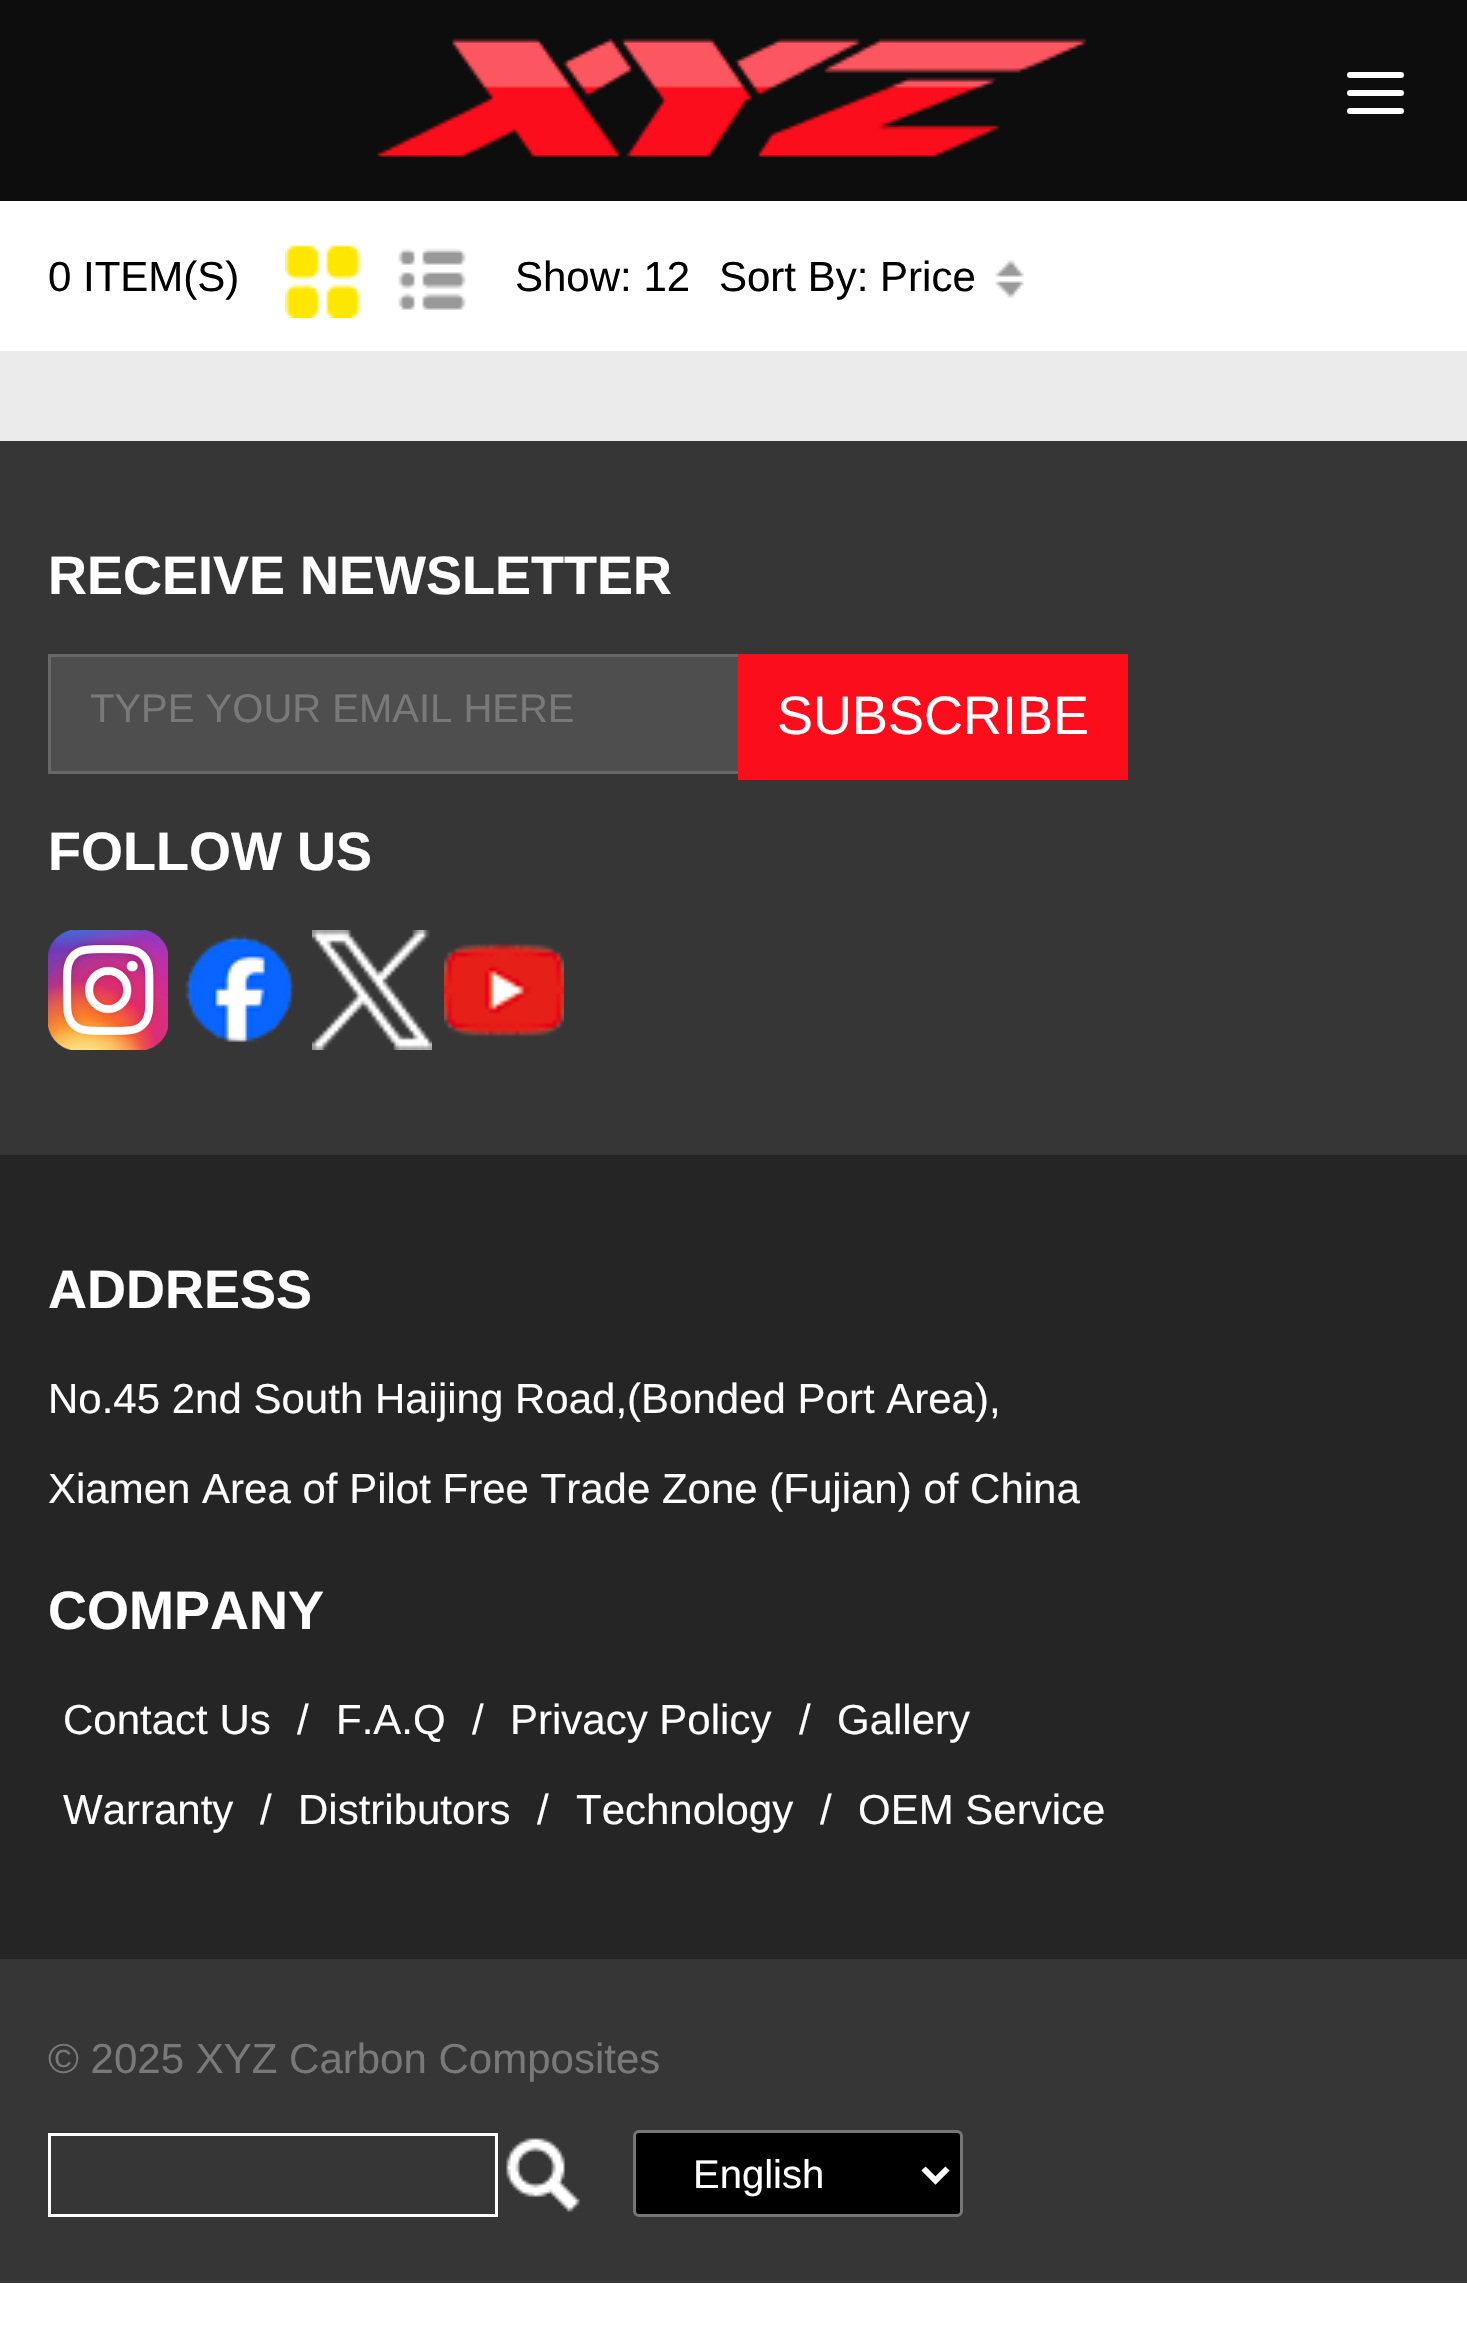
void draw(SkCanvas* c) {
SkPaint p;
p.setAntiAlias(true);
auto F=[&](const char* family, int weight, float size, bool italic = false){SkFontStyle style(weight, SkFontStyle::kNormal_Width,italic ? SkFontStyle::kItalic_Slant : SkFontStyle::kUpright_Slant);SkFont result(fontMgr->matchFamilyStyle(family, style), size);result.setSubpixel(true);return result;};
auto T=[&](const char* s, float x, float y, const SkFont& font){c->drawString(s, x, y, font, p);};
auto R=[&](float x, float y, float w, float h){c->drawRect(SkRect::MakeXYWH(x, y, w, h), p);};
auto Q=[&](float x, float y, float w, float h, float radius){c->drawRoundRect(SkRect::MakeXYWH(x, y, w, h), radius, radius, p);};
auto I=[&](const char* path, float x, float y, float w, float h){auto image = SkImages::DeferredFromEncodedData(SkData::MakeFromFileName(path));c->drawImageRect(image, SkRect::MakeXYWH(x, y, w, h), SkSamplingOptions());};
auto P=[&](const char* data, bool evenOdd = false){SkPath result = *SkParsePath::FromSVGString(data);if (evenOdd) result.setFillType(SkPathFillType::kEvenOdd);return result;};
c->clear(0xffffffff);
p.setColor(0xff0d0d0d);
R(0,0,1467,201);
I("1.png",377,38,710,119);
p.setColor(0xffffffff);
Q(1347,72,57,6,3);
Q(1347,90,57,6,3);
Q(1347,108,57,6,3);
auto f1 = F("Liberation Sans",400,42);
p.setColor(0xff000000);
T("0 ITEM(S)",48,291,f1);
I("2.png",285,245,76,73);
I("3.png",398,248,68,62);
T("Show: 12",515,291,f1);
T("Sort By: Price",719,291,f1);
I("4.png",995,260,29,38);
p.setColor(0xffebebeb);
R(0,351,1467,90);
p.setColor(0xff363636);
R(0,441,1467,1842);
auto f2 = F("Liberation Sans",700,54);
p.setColor(0xffffffff);
T("RECEIVE NEWSLETTER",48,594,f2);
p.setColor(0xff4e4e4e);
R(51,657,687,114);
p.setStroke(true);
p.setStrokeWidth(3);
p.setColor(0xff686868);
c->drawRect(SkRect::MakeXYWH(49.5,655.5,1077,117),p);
auto f3 = F("Liberation Sans",400,40);
p.setStroke(false);
p.setColor(0xff797979);
T("TYPE YOUR EMAIL HERE",90,722,f3);
p.setColor(0xfffb0d1c);
R(738,654,390,126);
auto f4 = F("Liberation Sans",400,54);
p.setColor(0xffffffff);
T("SUBSCRIBE",777,734,f4);
T("FOLLOW US",48,870,f2);
I("5.png",48,930,120,120);
I("6.png",185,935,110,108);
I("7.png",312,930,120,120);
I("8.png",444,943,120,94);
p.setColor(0xff252525);
R(0,1155,1467,804);
p.setColor(0xffffffff);
T("ADDRESS",48,1308,f2);
T("No.45 2nd South Haijing Road,(Bonded Port Area),",48,1413,f1);
T("Xiamen Area of Pilot Free Trade Zone (Fujian) of China",48,1503,f1);
T("COMPANY",48,1629,f2);
T("Contact Us",63,1734,f1);
T("/",297,1734,f1);
T("F.A.Q",336,1734,f1);
T("/",472,1734,f1);
T("Privacy Policy",510,1734,f1);
T("/",799,1734,f1);
T("Gallery",837,1734,f1);
T("Warranty",63,1824,f1);
T("/",260,1824,f1);
T("Distributors",298,1824,f1);
T("/",537,1824,f1);
T("Technology",576,1824,f1);
T("/",820,1824,f1);
T("OEM Service",858,1824,f1);
p.setColor(0xff797979);
T("© 2025 XYZ Carbon Composites",48,2073,f1);
p.setStroke(true);
p.setColor(0xffffffff);
c->drawRect(SkRect::MakeXYWH(49.5,2134.5,447,81),p);
I("9.png",506,2138,74,74);
p.setStroke(false);
p.setColor(0xff000000);
c->drawRoundRect(SkRect::MakeXYWH(634.5,2131.5,327,84),4.5,4.5,p);
p.setStroke(true);
p.setColor(0xff767676);
c->drawRoundRect(SkRect::MakeXYWH(634.5,2131.5,327,84),4.5,4.5,p);
p.setStrokeWidth(6);
p.setColor(0xffffffff);
c->drawPath(P("M923.5 2168.5l12 12l12-12"),p);
p.setStroke(false);
T("English",693,2188,f3);
}
